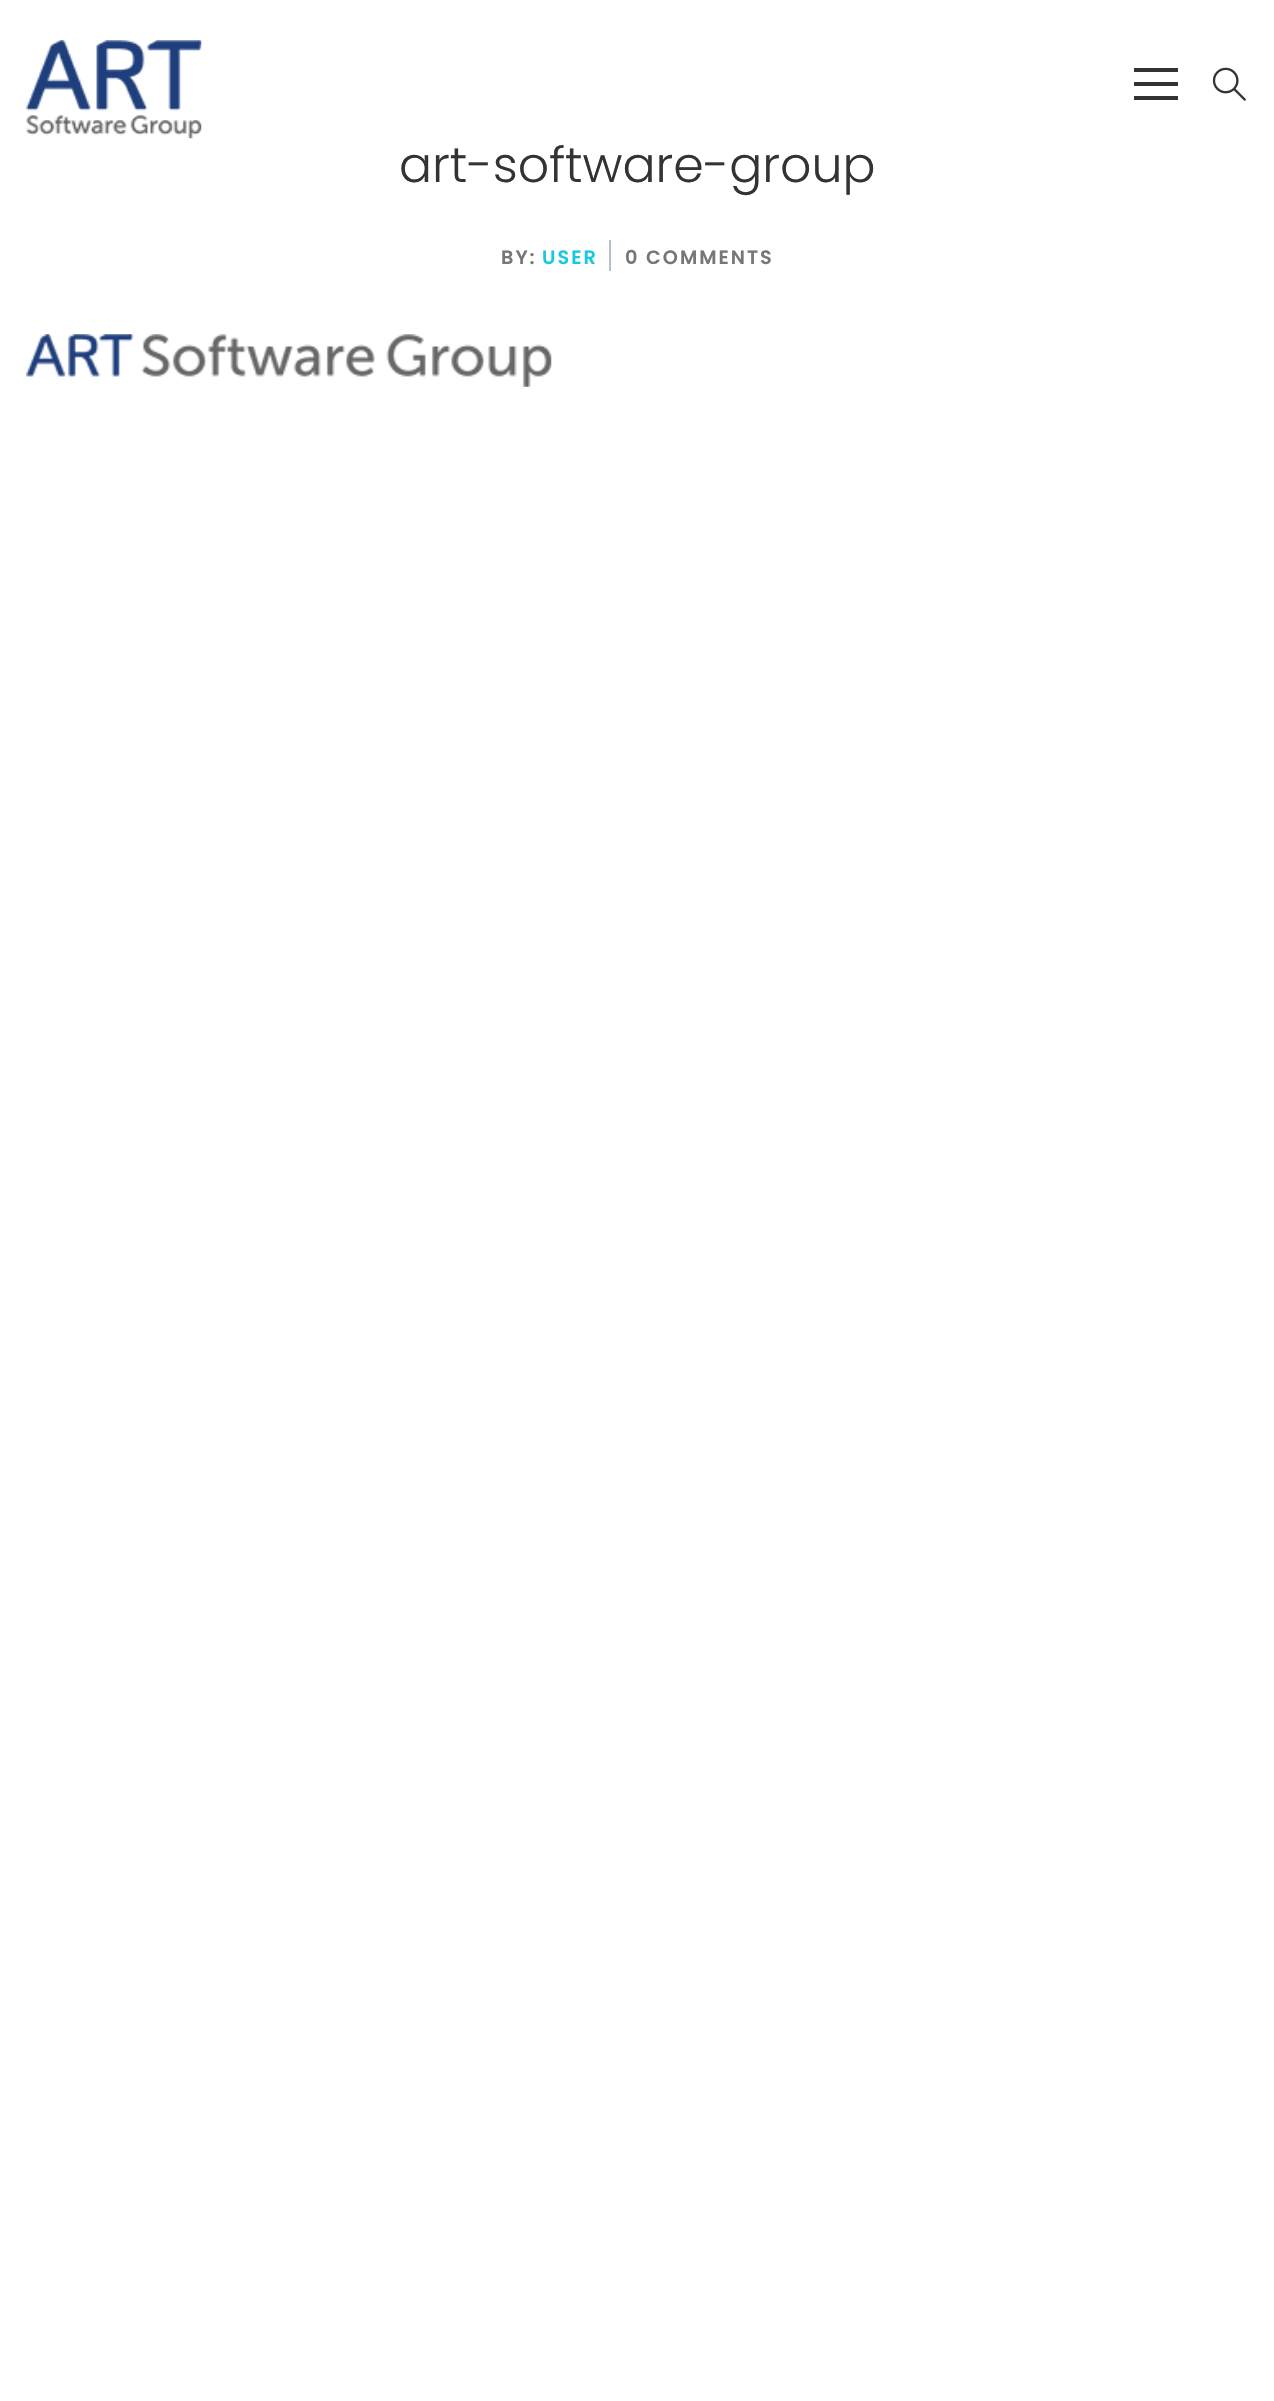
void draw(SkCanvas* c) {
SkPaint p;
p.setAntiAlias(true);
auto F=[&](const char* family, int weight, float size, bool italic = false){SkFontStyle style(weight, SkFontStyle::kNormal_Width,italic ? SkFontStyle::kItalic_Slant : SkFontStyle::kUpright_Slant);SkFont result(fontMgr->matchFamilyStyle(family, style), size);result.setSubpixel(true);return result;};
auto T=[&](const char* s, float x, float y, const SkFont& font){c->drawString(s, x, y, font, p);};
auto L=[&](const char* s, float x, float y, const SkFont& font, const SkPaint& ink, float letter, float word){std::vector<SkGlyphID> glyphs(font.countText(s, strlen(s), SkTextEncoding::kUTF8));std::vector<float> xs(glyphs.size());font.textToGlyphs(s, strlen(s), SkTextEncoding::kUTF8, glyphs);font.getXPos(glyphs, xs, x);float extra = 0;for (size_t i = 0; i < glyphs.size(); i++) {xs[i] += extra;extra += letter + word * (glyphs[i] == font.unicharToGlyph(' '));}c->drawTextBlob(SkTextBlob::MakeFromPosHGlyphs(glyphs, xs, y, font), 0, 0, ink);};
auto R=[&](float x, float y, float w, float h){c->drawRect(SkRect::MakeXYWH(x, y, w, h), p);};
auto I=[&](const char* path, float x, float y, float w, float h){auto image = SkImages::DeferredFromEncodedData(SkData::MakeFromFileName(path));c->drawImageRect(image, SkRect::MakeXYWH(x, y, w, h), SkSamplingOptions());};
c->clear(0xffffffff);
I("1.png",26,40,176,99);
p.setColor(0xff333333);
R(1134,68,44,4);
R(1134,82,44,4);
R(1134,96,44,4);
I("2.png",1212,67,34,34);
auto f1 = F("Poppins",300,49);
T("art-software-group",399,182,f1);
auto f2 = F("Poppins",600,19.25);
p.setColor(0xff777777);
L("BY:",501,264,f2,p,2,0);
p.setColor(0xff18c9de);
L("USER",542,264,f2,p,2,0);
p.setColor(0xffb6bfca);
R(609,240,2,31);
p.setColor(0xff777777);
L("0 COMMENTS",625,264,f2,p,2,0);
I("3.png",26,334,526,53);
}
